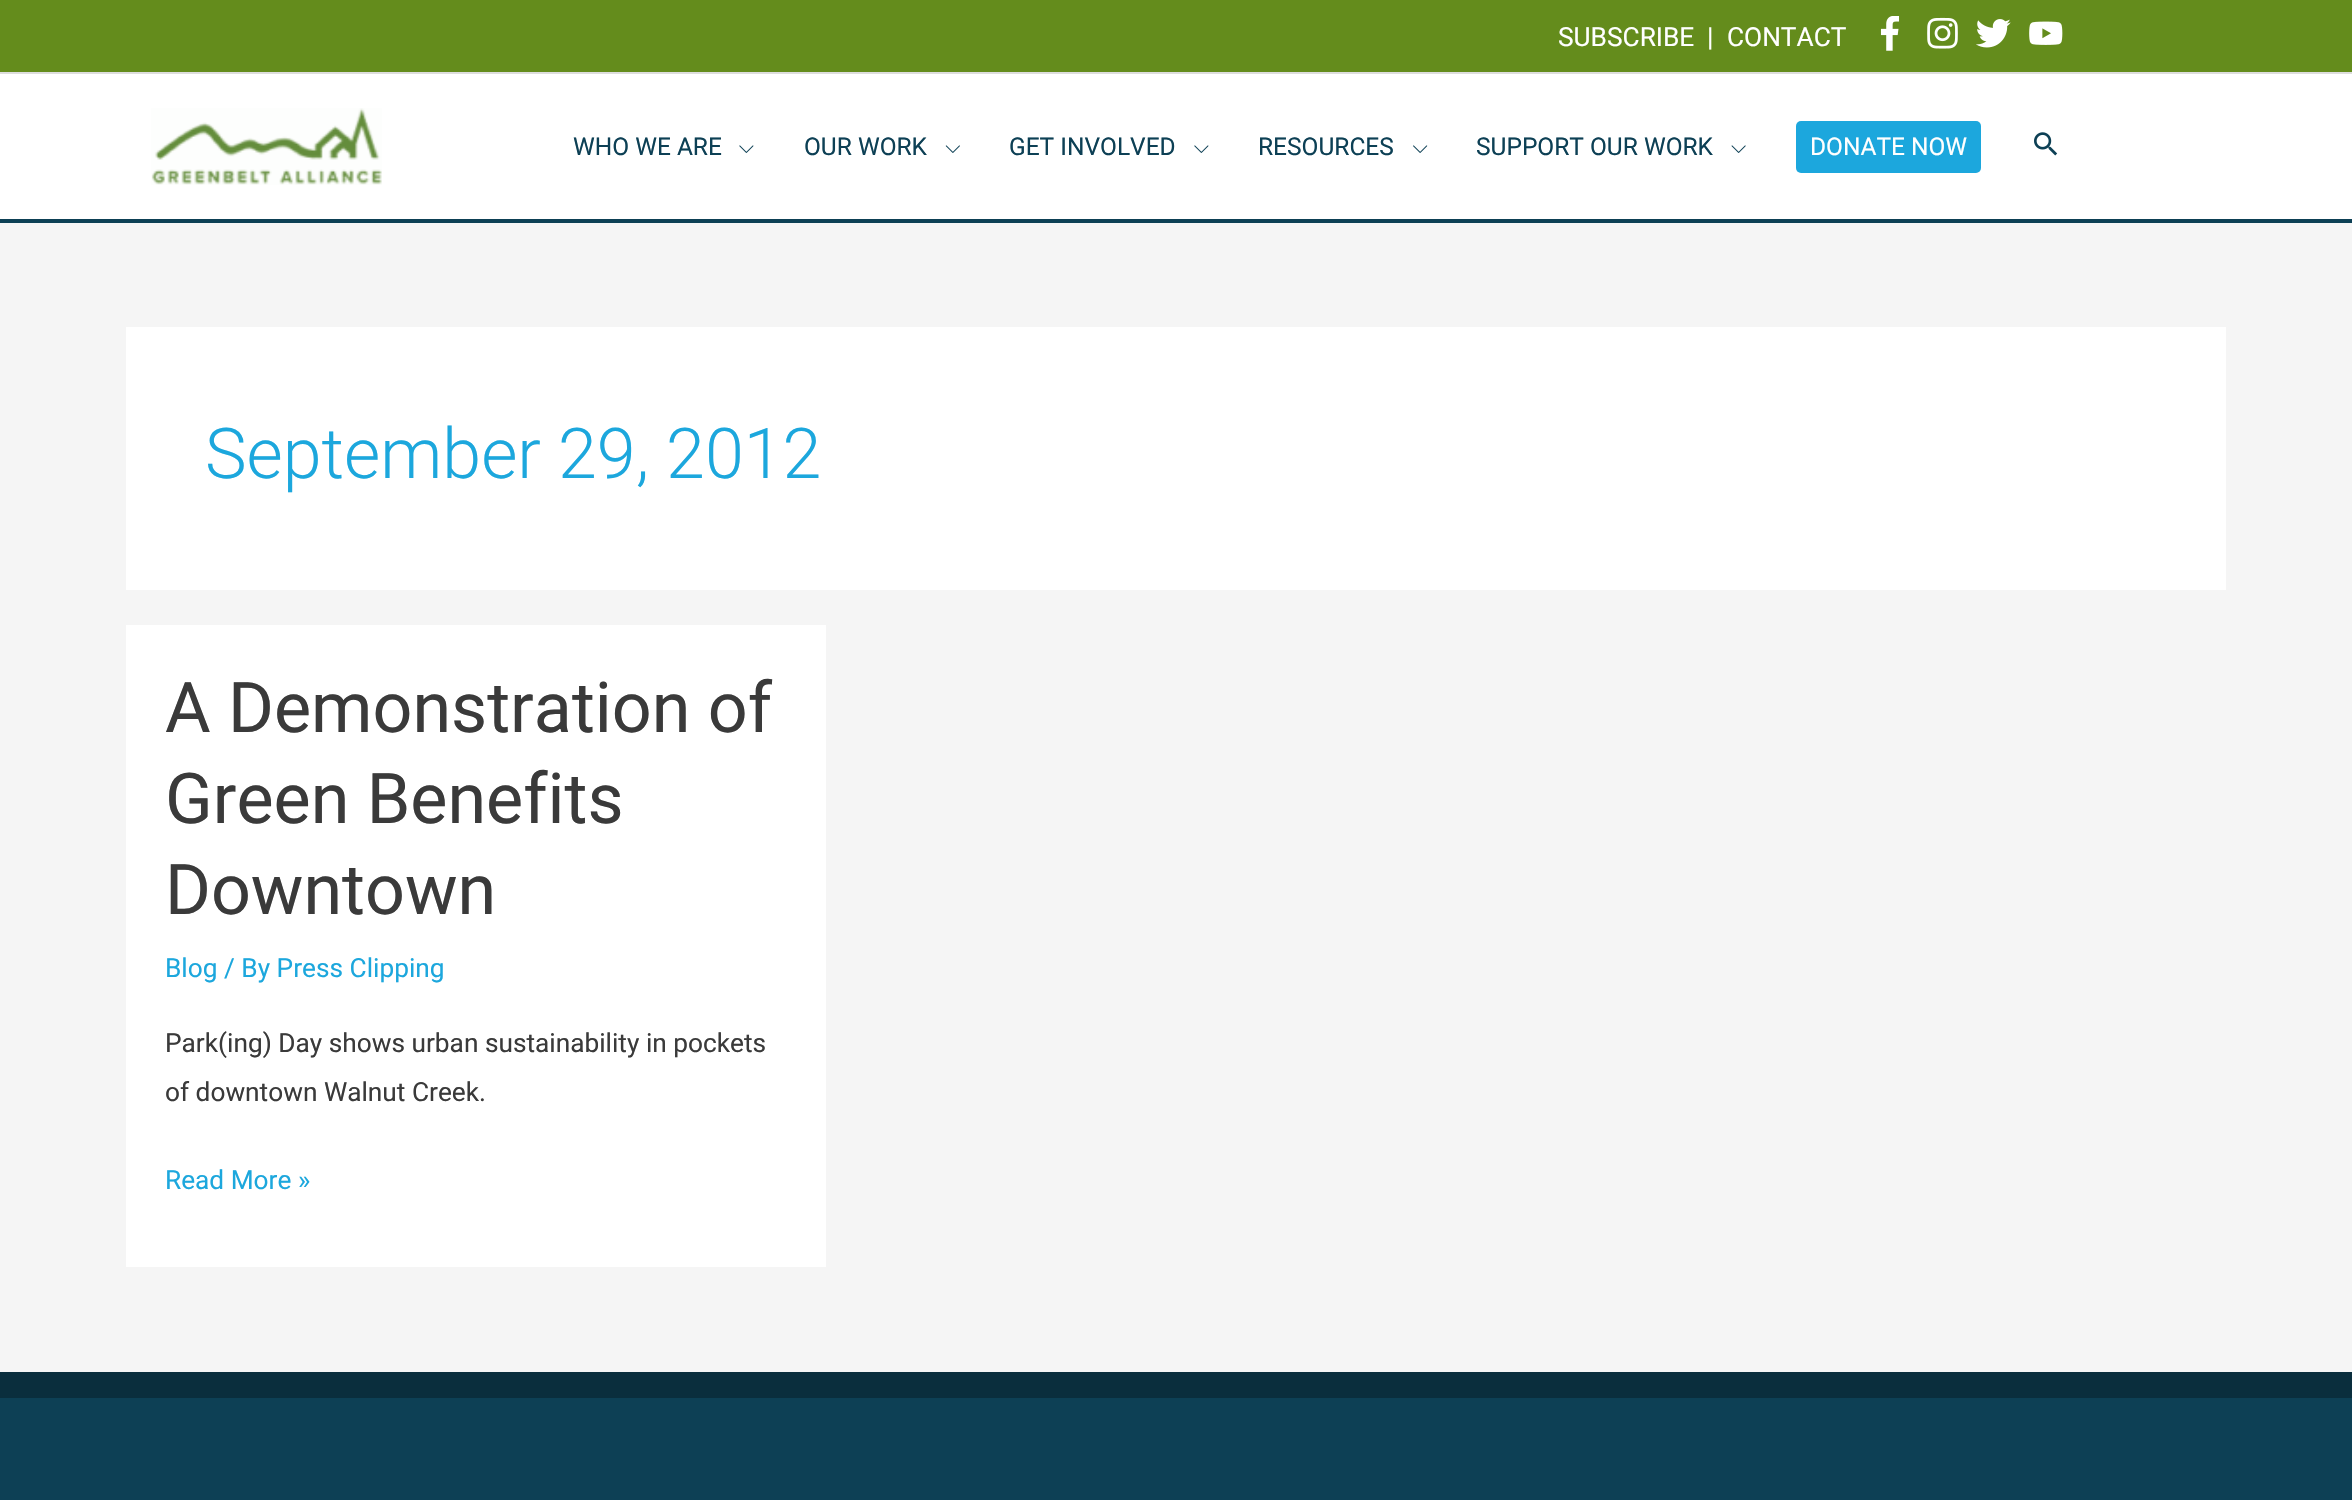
void draw(SkCanvas* c) {
SkPaint p;
p.setAntiAlias(true);
auto F=[&](const char* family, int weight, float size, bool italic = false){SkFontStyle style(weight, SkFontStyle::kNormal_Width,italic ? SkFontStyle::kItalic_Slant : SkFontStyle::kUpright_Slant);SkFont result(fontMgr->matchFamilyStyle(family, style), size);result.setSubpixel(true);return result;};
auto T=[&](const char* s, float x, float y, const SkFont& font){c->drawString(s, x, y, font, p);};
auto R=[&](float x, float y, float w, float h){c->drawRect(SkRect::MakeXYWH(x, y, w, h), p);};
auto Q=[&](float x, float y, float w, float h, float radius){c->drawRoundRect(SkRect::MakeXYWH(x, y, w, h), radius, radius, p);};
auto I=[&](const char* path, float x, float y, float w, float h){auto image = SkImages::DeferredFromEncodedData(SkData::MakeFromFileName(path));c->drawImageRect(image, SkRect::MakeXYWH(x, y, w, h), SkSamplingOptions());};
c->clear(0xfff5f5f5);
p.setColor(0xff648c1c);
R(0,0,2352,72);
p.setColor(0xffdddddd);
R(0,72,2352,2);
auto f1 = F("Roboto",400,26.25);
p.setColor(0xffffffff);
T("SUBSCRIBE",1558,46,f1);
T("|",1707,46,f1);
T("CONTACT",1727,46,f1);
I("1.png",1880,16,20,35);
I("2.png",1927,17,31,32);
I("3.png",1976,19,35,29);
I("4.png",2029,21,34,24);
R(0,74,2352,145);
p.setColor(0xff0d4055);
R(0,219,2352,4);
I("5.png",151,108,231,77);
auto f2 = F("Roboto",400,24.5);
T("WHO WE ARE",573,155,f2);
I("6.png",739,145,15,8);
T("OUR WORK",804,155,f2);
I("7.png",945,145,15,8);
T("GET INVOLVED",1009,155,f2);
I("6.png",1194,145,15,8);
T("RESOURCES",1258,155,f2);
I("8.png",1413,145,15,8);
T("SUPPORT OUR WORK",1476,155,f2);
I("9.png",1731,145,15,8);
p.setColor(0xff1ca7dd);
Q(1796,121,185,52,5);
p.setColor(0xffffffff);
T("DONATE NOW",1810,155,f2);
I("10.png",2034,132,24,24);
R(126,327,2100,263);
auto f3 = F("Roboto",300,70);
p.setColor(0xff1ca7dd);
T("September 29, 2012",205,478,f3);
p.setColor(0xffffffff);
R(126,625,700,642);
auto f4 = F("Roboto",400,70);
p.setColor(0xff3a3a3a);
T("A Demonstration of",165,732,f4);
T("Green Benefits",165,823,f4);
T("Downtown",165,914,f4);
p.setColor(0xff1ca7dd);
T("Blog / By Press Clipping",165,977,f1);
p.setColor(0xff3a3a3a);
T("Park(ing) Day shows urban sustainability in pockets",165,1052,f1);
T("of downtown Walnut Creek.",165,1101,f1);
p.setColor(0xff1ca7dd);
T("Read More »",165,1189,f1);
p.setColor(0xff0d4055);
R(0,1398,2352,102);
p.setColor(0xff0a2e3d);
R(0,1372,2352,26);
}
